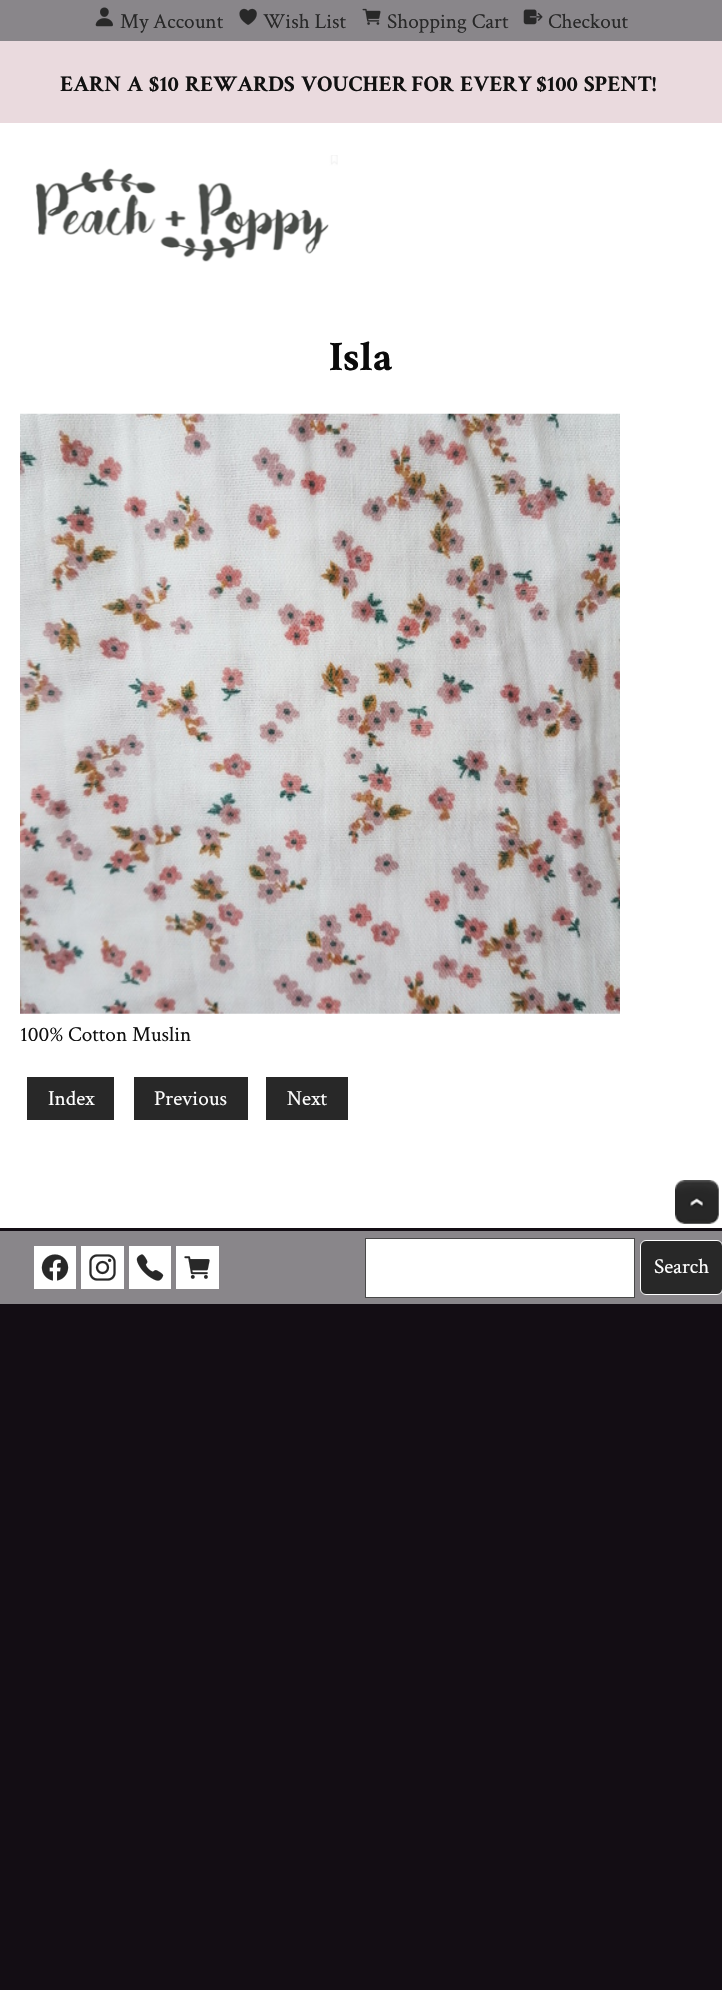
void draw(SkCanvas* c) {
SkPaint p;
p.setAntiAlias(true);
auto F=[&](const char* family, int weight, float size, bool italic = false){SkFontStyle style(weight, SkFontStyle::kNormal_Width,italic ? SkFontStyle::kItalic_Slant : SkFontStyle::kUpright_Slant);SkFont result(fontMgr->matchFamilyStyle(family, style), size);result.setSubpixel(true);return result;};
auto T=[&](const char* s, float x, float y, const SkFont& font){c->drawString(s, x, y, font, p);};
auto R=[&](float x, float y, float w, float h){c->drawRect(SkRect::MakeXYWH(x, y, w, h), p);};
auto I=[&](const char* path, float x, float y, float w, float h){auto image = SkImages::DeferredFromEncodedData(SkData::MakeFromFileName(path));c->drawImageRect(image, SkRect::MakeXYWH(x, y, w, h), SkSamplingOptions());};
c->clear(0xff130d14);
p.setColor(0xff89868a);
R(0,0,722,41);
I("1.png",95,7,18,20);
auto f1 = F("Crimson Text",400,21.25);
p.setColor(0xff282828);
T("My Account",120,28,f1);
I("2.png",239,8,18,17);
T("Wish List",263,28,f1);
I("3.png",362,8,19,17);
T("Shopping Cart",387,28,f1);
I("4.png",523,9,20,16);
T("Checkout",548,28,f1);
p.setColor(0xffeadade);
R(0,41,722,82);
auto f2 = F("Crimson Text",700,22.5);
p.setColor(0xff111111);
T("EARN",60,91,f2);
T("A",127,91,f2);
T("$10",149,91,f2);
T("REWARDS",185,91,f2);
T("VOUCHER FOR",301,91,f2);
T("EVERY $100",460,91,f2);
T("SPENT!",584,91,f2);
p.setColor(0xffffffff);
R(0,123,722,1105);
I("5.png",35,155,303,107);
auto f3 = F("Crimson Text",700,42);
p.setColor(0xff0a0a0a);
T("Isla",329,370,f3);
I("6.png",20,413,600,601);
p.setColor(0xff111111);
T("100% Cotton Muslin",20,1041,f1);
p.setColor(0xff282828);
R(27,1077,87,43);
p.setColor(0xffffffff);
T("Index",48,1105,f1);
p.setColor(0xff282828);
R(134,1077,114,43);
p.setColor(0xffffffff);
T("Previous",154,1105,f1);
p.setColor(0xff282828);
R(266,1077,82,43);
p.setColor(0xffffffff);
T("Next",287,1105,f1);
I("7.png",675,1180,44,44);
p.setColor(0xff89868a);
R(0,1231,722,73);
p.setColor(0xffffffff);
R(34,1246,42,43);
I("8.png",41,1254,28,27);
R(81,1246,43,43);
I("9.png",89,1254,27,27);
R(129,1246,42,43);
I("10.png",136,1254,28,27);
R(176,1246,43,43);
I("11.png",184,1256,26,23);
c->drawRect(SkRect::MakeXYWH(365.5,1238.5,269,59),p);
p.setStroke(true);
p.setStrokeWidth(1);
p.setColor(0xff484848);
c->drawRect(SkRect::MakeXYWH(365.5,1238.5,269,59),p);
p.setStroke(false);
p.setColor(0xff282828);
c->drawRoundRect(SkRect::MakeXYWH(640.5,1240.5,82,54),5.5,5.5,p);
p.setStroke(true);
p.setColor(0xffffffff);
c->drawRoundRect(SkRect::MakeXYWH(640.5,1240.5,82,54),5.5,5.5,p);
p.setStroke(false);
T("Search",654,1273,f1);
}
